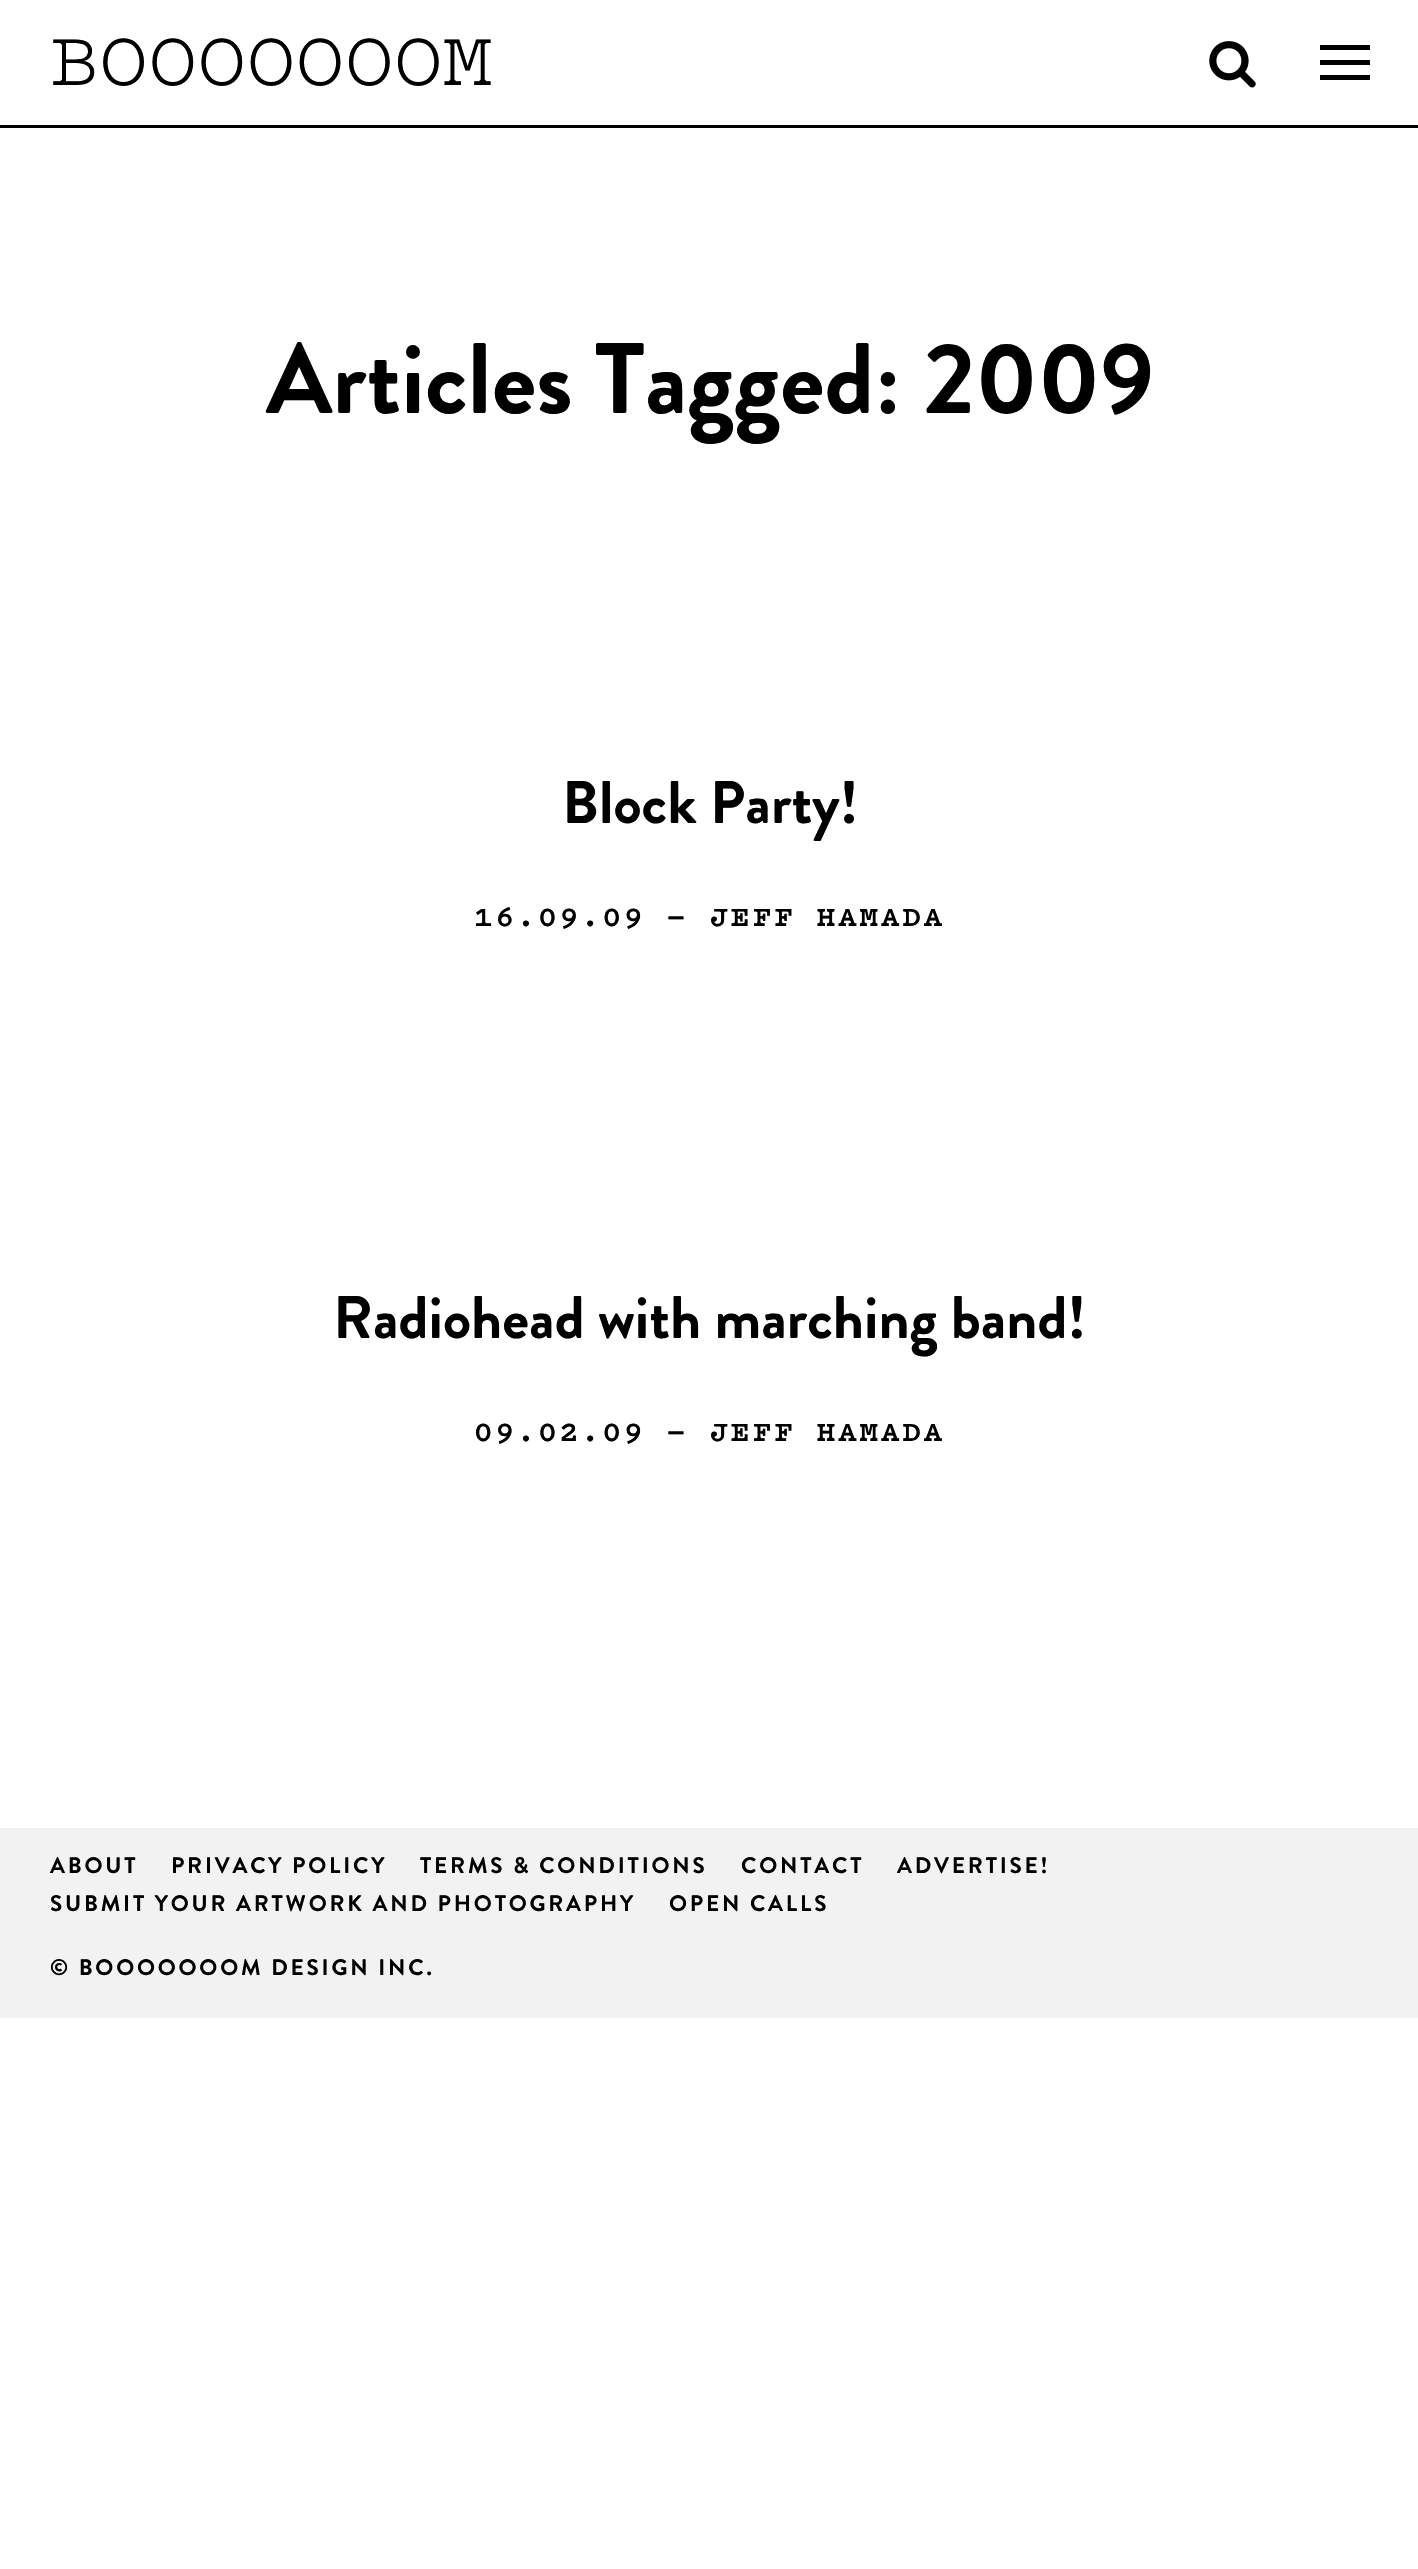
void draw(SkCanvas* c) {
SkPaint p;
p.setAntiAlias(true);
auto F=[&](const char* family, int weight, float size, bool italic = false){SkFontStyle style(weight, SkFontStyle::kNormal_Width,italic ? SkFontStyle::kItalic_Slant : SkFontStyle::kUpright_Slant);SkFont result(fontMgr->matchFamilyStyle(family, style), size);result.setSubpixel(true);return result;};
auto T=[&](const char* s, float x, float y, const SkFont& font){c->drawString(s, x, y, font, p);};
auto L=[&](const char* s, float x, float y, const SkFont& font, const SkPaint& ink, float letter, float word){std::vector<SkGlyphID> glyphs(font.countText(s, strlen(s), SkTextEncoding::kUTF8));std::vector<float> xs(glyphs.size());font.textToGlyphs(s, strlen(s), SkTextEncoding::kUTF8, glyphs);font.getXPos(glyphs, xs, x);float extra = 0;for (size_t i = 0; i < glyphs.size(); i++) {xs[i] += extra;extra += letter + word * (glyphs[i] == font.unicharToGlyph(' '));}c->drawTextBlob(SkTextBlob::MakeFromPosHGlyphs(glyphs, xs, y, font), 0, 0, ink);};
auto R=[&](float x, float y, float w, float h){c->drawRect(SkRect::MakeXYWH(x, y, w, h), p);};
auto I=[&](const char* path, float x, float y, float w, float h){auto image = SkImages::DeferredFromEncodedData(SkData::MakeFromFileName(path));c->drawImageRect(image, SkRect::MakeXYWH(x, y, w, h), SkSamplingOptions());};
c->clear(0xffffffff);
p.setColor(0xff000000);
R(0,125,1418,3);
auto f1 = F("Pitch",400,80);
T("BOOOOOOOM",50,85,f1);
I("1.png",1209,41,47,47);
R(1320,45,50,5);
R(1320,60,50,5);
R(1320,75,50,5);
auto f2 = F("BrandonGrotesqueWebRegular",400,100);
T("Articles Tagged: 2009",266,413,f2);
auto f3 = F("BrandonGrotesqueWebRegular",400,60);
T("Block Party!",562,823,f3);
auto f4 = F("Pitch",700,30);
L("16.09.09 — JEFF HAMADA",474,926,f4,p,3,0);
T("Radiohead with marching band!",333,1338,f3);
L("09.02.09 — JEFF HAMADA",474,1441,f4,p,3,0);
p.setColor(0xfff2f2f2);
R(0,1828,1418,190);
auto f5 = F("BrandonGrotesqueWebRegular",400,22.5);
p.setColor(0xff000000);
L("ABOUT",50,1873,f5,p,2.8,0);
L("PRIVACY POLICY",171,1873,f5,p,2.8,0);
L("TERMS & CONDITIONS",420,1873,f5,p,2.8,0);
L("CONTACT",741,1873,f5,p,2.8,0);
L("ADVERTISE!",897,1873,f5,p,2.8,0);
L("SUBMIT YOUR ARTWORK AND PHOTOGRAPHY",50,1911,f5,p,2.8,0);
L("OPEN CALLS",669,1911,f5,p,2.8,0);
L("© BOOOOOOOM DESIGN INC.",50,1975,f5,p,2.8,0);
}
